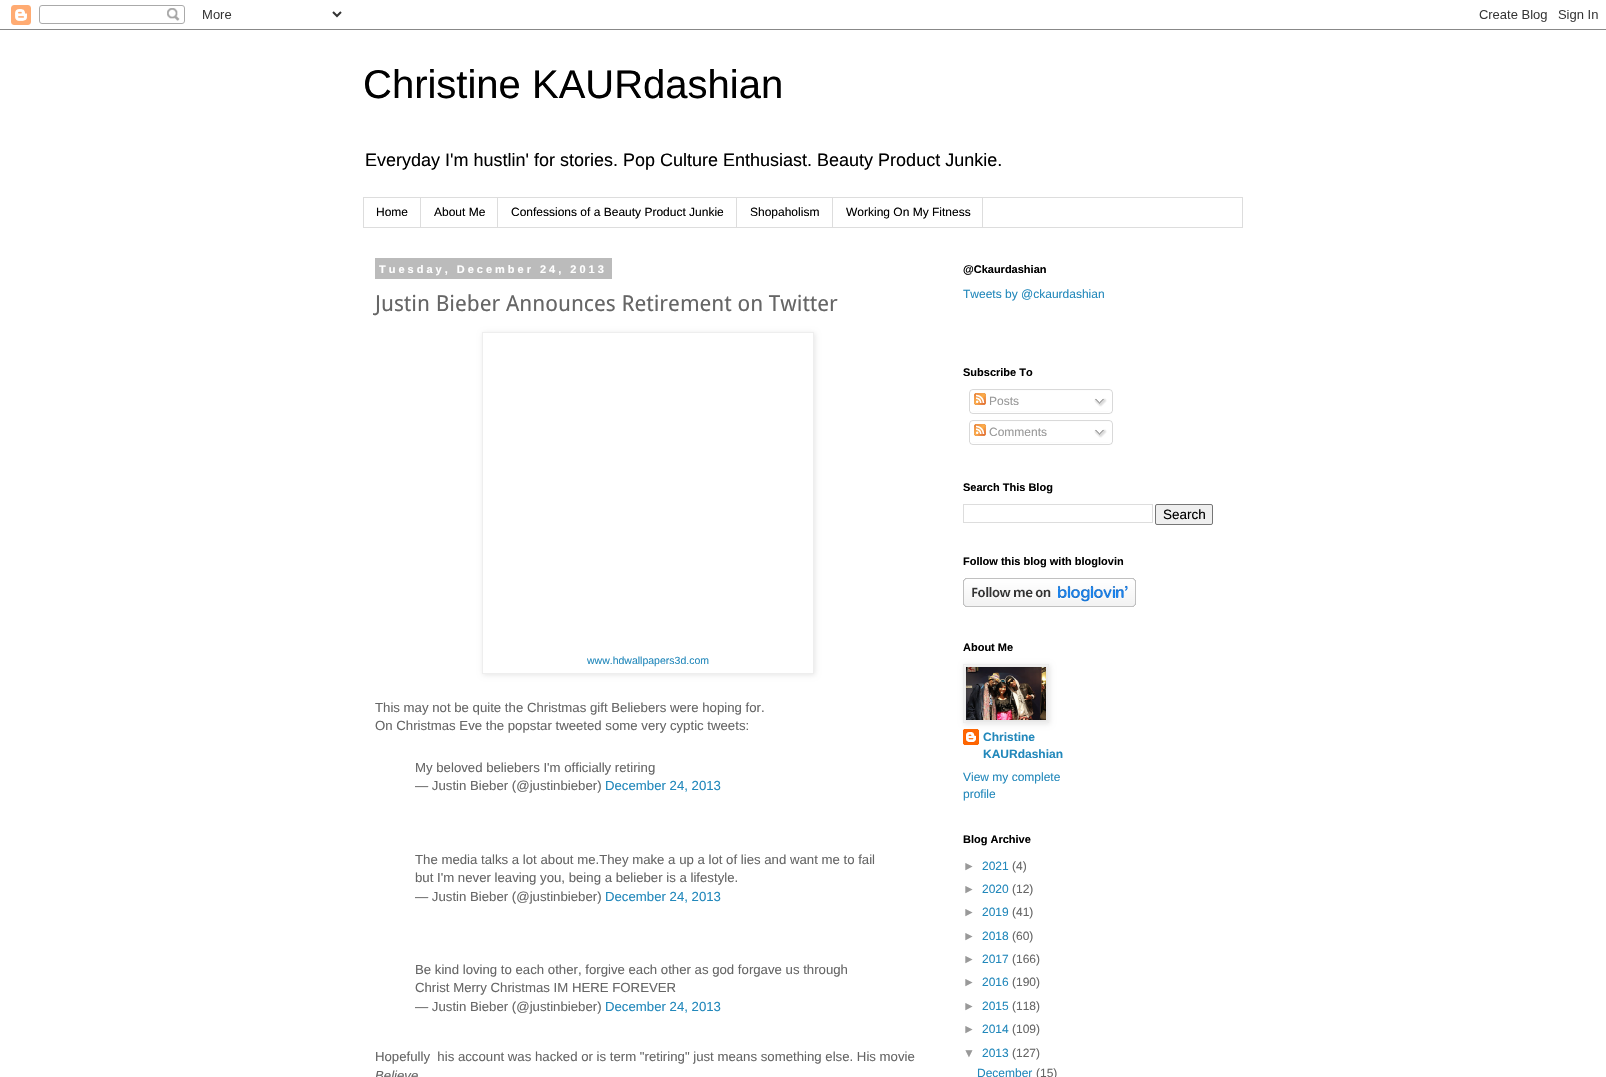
void draw(SkCanvas* c) {
SkPaint p;
p.setAntiAlias(true);
auto F=[&](const char* family, int weight, float size, bool italic = false){SkFontStyle style(weight, SkFontStyle::kNormal_Width,italic ? SkFontStyle::kItalic_Slant : SkFontStyle::kUpright_Slant);SkFont result(fontMgr->matchFamilyStyle(family, style), size);result.setSubpixel(true);return result;};
auto T=[&](const char* s, float x, float y, const SkFont& font){c->drawString(s, x, y, font, p);};
auto L=[&](const char* s, float x, float y, const SkFont& font, const SkPaint& ink, float letter, float word){std::vector<SkGlyphID> glyphs(font.countText(s, strlen(s), SkTextEncoding::kUTF8));std::vector<float> xs(glyphs.size());font.textToGlyphs(s, strlen(s), SkTextEncoding::kUTF8, glyphs);font.getXPos(glyphs, xs, x);float extra = 0;for (size_t i = 0; i < glyphs.size(); i++) {xs[i] += extra;extra += letter + word * (glyphs[i] == font.unicharToGlyph(' '));}c->drawTextBlob(SkTextBlob::MakeFromPosHGlyphs(glyphs, xs, y, font), 0, 0, ink);};
auto R=[&](float x, float y, float w, float h){c->drawRect(SkRect::MakeXYWH(x, y, w, h), p);};
auto I=[&](const char* path, float x, float y, float w, float h){auto image = SkImages::DeferredFromEncodedData(SkData::MakeFromFileName(path));c->drawImageRect(image, SkRect::MakeXYWH(x, y, w, h), SkSamplingOptions());};
auto P=[&](const char* data, bool evenOdd = false){SkPath result = *SkParsePath::FromSVGString(data);if (evenOdd) result.setFillType(SkPathFillType::kEvenOdd);return result;};
c->clear(0xffffffff);
I("1.png",0,5,1606,25);
auto f1 = F("Liberation Sans",400,40);
p.setColor(0xff000000);
T("Christine KAURdashian",363,98,f1);
auto f2 = F("Liberation Sans",400,18);
T("Everyday I'm hustlin' for stories. Pop Culture Enthusiast. Beauty Product Junkie.",365,166,f2);
p.setStroke(true);
p.setStrokeWidth(1);
p.setColor(0xffdddddd);
c->drawRect(SkRect::MakeXYWH(363.5,197.5,879,30),p);
p.setStroke(false);
R(420,198,1,29);
auto f3 = F("Liberation Sans",400,12);
p.setColor(0xff000000);
T("Home",376,216,f3);
p.setColor(0xffdddddd);
R(497,198,1,29);
p.setColor(0xff000000);
T("About Me",434,216,f3);
p.setColor(0xffdddddd);
R(736,198,1,29);
p.setColor(0xff000000);
T("Confessions of a Beauty Product Junkie",511,216,f3);
p.setColor(0xffdddddd);
R(832,198,1,29);
p.setColor(0xff000000);
T("Shopaholism",750,216,f3);
p.setColor(0xffdddddd);
R(982,198,1,29);
p.setColor(0xff000000);
T("Working On My Fitness",846,216,f3);
p.setColor(0xffbbbbbb);
R(375,258,237,21);
auto f4 = F("Liberation Sans",700,11);
p.setColor(0xffffffff);
L("Tuesday, December 24, 2013",379,273,f4,p,3,0);
auto f5 = F("Droid Sans",400,22);
p.setColor(0xff666666);
T("Justin Bieber Announces Retirement on Twitter",375,311,f5);
c->save();
c->clipPath(P("M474 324h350v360h-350zm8 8h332v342h-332z",true),true);
p.setColor(0x1a000000);
p.setMaskFilter(SkMaskFilter::MakeBlur(kNormal_SkBlurStyle, 2.5));
c->drawRect(SkRect::MakeXYWH(483,333,332,342),p);
p.setMaskFilter(nullptr);
c->restore();
p.setStroke(true);
p.setColor(0xffeeeeee);
c->drawRect(SkRect::MakeXYWH(482.5,332.5,331,341),p);
auto f6 = F("Liberation Sans",400,10.5);
p.setStroke(false);
p.setColor(0xff2288bb);
T("www.hdwallpapers3d.com",587,664,f6);
auto f7 = F("Liberation Sans",400,13.2);
p.setColor(0xff666666);
T("This may not be quite the Christmas gift Beliebers were hoping for.",375,712,f7);
T("On Christmas Eve the popstar tweeted some very cyptic tweets:",375,730,f7);
T("My beloved beliebers I'm officially retiring",415,772,f7);
T("— Justin Bieber (@justinbieber)",415,790,f7);
p.setColor(0xff2288bb);
T("December 24, 2013",605,790,f7);
p.setColor(0xff666666);
T("The media talks a lot about me.They make a up a lot of lies and want me to fail",415,864,f7);
T("but I'm never leaving you, being a belieber is a lifestyle.",415,882,f7);
T("— Justin Bieber (@justinbieber)",415,901,f7);
p.setColor(0xff2288bb);
T("December 24, 2013",605,901,f7);
p.setColor(0xff666666);
T("Be kind loving to each other, forgive each other as god forgave us through",415,974,f7);
T("Christ Merry Christmas IM HERE FOREVER",415,992,f7);
T("— Justin Bieber (@justinbieber)",415,1011,f7);
p.setColor(0xff2288bb);
T("December 24, 2013",605,1011,f7);
p.setColor(0xff666666);
T("Hopefully  his account was hacked or is term \"retiring\" just means something else. His movie",375,1061,f7);
auto f8 = F("Liberation Sans",400,13.2,true);
T("Believe",375,1080,f8);
p.setColor(0xff000000);
T("@Ckaurdashian",963,273,f4);
p.setColor(0xff2288bb);
T("Tweets by @ckaurdashian",963,298,f3);
p.setColor(0xff000000);
T("Subscribe To",963,376,f4);
I("2.png",969,389,144,22);
I("3.png",974,393,12,12);
p.setColor(0xff999999);
T("Posts",989,405,f3);
I("4.png",1094,398,13,9);
I("5.png",969,411,144,3);
I("2.png",969,420,144,22);
I("3.png",974,424,12,12);
T("Comments",989,436,f3);
I("4.png",1094,429,13,9);
I("5.png",969,442,144,3);
p.setColor(0xff000000);
T("Search This Blog",963,491,f4);
p.setStroke(true);
p.setColor(0xffdddddd);
c->drawRect(SkRect::MakeXYWH(963.5,504.5,189,18),p);
p.setStroke(false);
p.setColor(0xffefefef);
c->drawRoundRect(SkRect::MakeXYWH(1155.5,504.5,57,20),1.5,1.5,p);
p.setStroke(true);
p.setColor(0xff767676);
c->drawRoundRect(SkRect::MakeXYWH(1155.5,504.5,57,20),1.5,1.5,p);
auto f9 = F("Liberation Sans",400,13.5);
p.setStroke(false);
p.setColor(0xff000000);
T("Search",1163,519,f9);
T("Follow this blog with bloglovin",963,565,f4);
I("6.png",963,578,173,29);
T("About Me",963,651,f4);
I("8.png",963,729,16,16);
p.setColor(0x1a000000);
p.setMaskFilter(SkMaskFilter::MakeBlur(kNormal_SkBlurStyle, 2.5));
c->drawRect(SkRect::MakeXYWH(964,665,86,59),p);
p.setMaskFilter(nullptr);
p.setStroke(true);
p.setColor(0xffeeeeee);
c->drawRect(SkRect::MakeXYWH(963.5,664.5,85,58),p);
I("7.png",966,667,80,53);
auto f10 = F("Liberation Sans",700,12);
p.setStroke(false);
p.setColor(0xff2288bb);
T("Christine",983,741,f10);
T("KAURdashian",983,758,f10);
T("View my complete",963,781,f3);
T("profile",963,798,f3);
p.setColor(0xff000000);
T("Blog Archive",963,843,f4);
p.setColor(0xff999999);
T("►",963,870,f3);
p.setColor(0xff2288bb);
T("2021",982,870,f3);
p.setColor(0xff666666);
T("(4)",1012,870,f3);
p.setColor(0xff999999);
T("►",963,893,f3);
p.setColor(0xff2288bb);
T("2020",982,893,f3);
p.setColor(0xff666666);
T("(12)",1012,893,f3);
p.setColor(0xff999999);
T("►",963,916,f3);
p.setColor(0xff2288bb);
T("2019",982,916,f3);
p.setColor(0xff666666);
T("(41)",1012,916,f3);
p.setColor(0xff999999);
T("►",963,940,f3);
p.setColor(0xff2288bb);
T("2018",982,940,f3);
p.setColor(0xff666666);
T("(60)",1012,940,f3);
p.setColor(0xff999999);
T("►",963,963,f3);
p.setColor(0xff2288bb);
T("2017",982,963,f3);
p.setColor(0xff666666);
T("(166)",1012,963,f3);
p.setColor(0xff999999);
T("►",963,986,f3);
p.setColor(0xff2288bb);
T("2016",982,986,f3);
p.setColor(0xff666666);
T("(190)",1012,986,f3);
p.setColor(0xff999999);
T("►",963,1010,f3);
p.setColor(0xff2288bb);
T("2015",982,1010,f3);
p.setColor(0xff666666);
T("(118)",1012,1010,f3);
p.setColor(0xff999999);
T("►",963,1033,f3);
p.setColor(0xff2288bb);
T("2014",982,1033,f3);
p.setColor(0xff666666);
T("(109)",1012,1033,f3);
p.setColor(0xff999999);
T("▼",963,1057,f3);
p.setColor(0xff2288bb);
T("2013",982,1057,f3);
p.setColor(0xff666666);
T("(127)",1012,1057,f3);
p.setColor(0xff2288bb);
T("December",977,1077,f3);
p.setColor(0xff666666);
T("(15)",1036,1077,f3);
}
